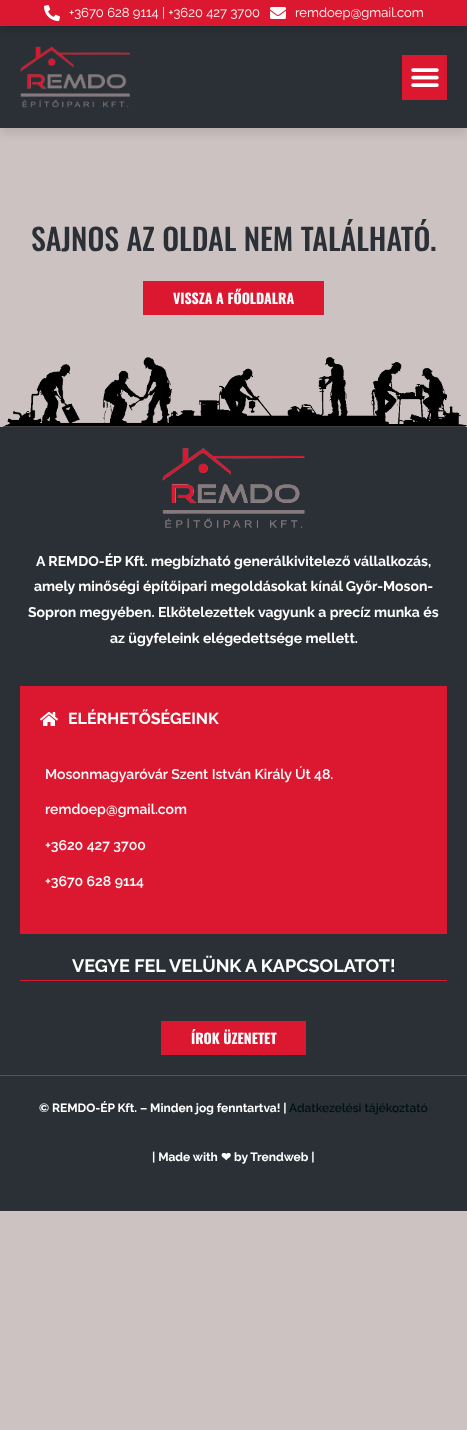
<svg xmlns="http://www.w3.org/2000/svg" width="467" height="1430">
<style>
.a{font:13px Raleway;fill:#fff}
.b{font:500 30px Oswald;fill:#2a3036}
.c{font:bold 14px Oswald;fill:#fff}
.d{font:bold 14px Raleway;fill:#fff}
.e{font:bold 16px Raleway;fill:#fff}
.f{font:600 14px Raleway;fill:#fff}
.g{font:bold 18px Raleway;fill:#fff}
.h{font:bold 12px Raleway;fill:#fff}
.i{font:600 12px Raleway;fill:#011111}
.j{font:bold 12px DejaVu Sans;fill:#fff}
</style>
<rect width="100%" height="100%" fill="#cdc2c2"/>
<path fill="#0000001a" filter="blur(5px)" d="M0 31h467v102H0z"/>
<path fill="#2a3036" d="M0 26h467v102H0z"/>
<image href="3.png" x="20" y="46" width="110" height="62"/>
<path fill="#0000001a" filter="blur(5px)" d="M0 5h467v26H0z"/>
<path fill="#dc1830" d="M0 0h467v26H0z"/>
<image href="1.png" x="44" y="5" width="16" height="16"/>
<image href="2.png" x="270" y="7" width="16" height="12"/>
<path fill="#dc1830" d="M402 55h45v45H402z"/>
<image href="4.png" x="411" y="68" width="28" height="19"/>
<path fill="#dc1830" d="M143 281h181v34H143z"/>
<image href="5.png" x="2" y="357" width="465" height="70"/>
<path fill="#2a3036" d="M0 427h467v648H0z"/>
<path fill="#dc1830" d="M0 1075h467v1H0z"/>
<image href="6.png" x="162" y="448" width="143" height="80"/>
<path fill="#dc1830" d="M20 686h427v248H20z"/>
<image href="7.png" x="40" y="712" width="18" height="14"/>
<path fill="#dc1830" d="M20 980h427v1H20z"/>
<path fill="#dc1830" d="M161 1021h145v34H161z"/>
<path fill="#2a3036" d="M0 1076h467v135H0z"/>
<text class="a" x="69" y="17">+3670 628 9114 | +3620 427 3700</text>
<text class="a" x="295" y="17">remdoep@gmail.com</text>
<text class="b" x="31" y="251">SAJNOS AZ OLDAL NEM TALÁLHATÓ.</text>
<text class="c" x="173" y="304">VISSZA A FŐOLDALRA</text>
<text class="d" x="36" y="566">A REMDO-ÉP Kft. megbízható generálkivitelező vállalkozás,</text>
<text class="d" x="34" y="591">amely minőségi építőipari megoldásokat kínál Győr-Moson-</text>
<text class="d" x="28" y="617">Sopron megyében. Elkötelezettek vagyunk a precíz munka és</text>
<text class="d" x="110" y="643">az ügyfeleink elégedettsége mellett.</text>
<text class="e" x="68" y="724">ELÉRHETŐSÉGEINK</text>
<text class="f" x="45" y="779">Mosonmagyaróvár Szent István Király Út 48.</text>
<text class="f" x="45" y="814">remdoep@gmail.com</text>
<text class="f" x="45" y="850">+3620 427 3700</text>
<text class="f" x="45" y="886">+3670 628 9114</text>
<text class="g" x="72" y="972">VEGYE FEL VELÜNK A KAPCSOLATOT!</text>
<text class="c" x="191" y="1044">ÍROK ÜZENETET</text>
<text class="h" x="39" y="1112">© REMDO-ÉP Kft. – Minden jog fenntartva! |</text>
<text class="i" x="289" y="1112">Adatkezelési tájékoztató</text>
<text class="h" x="152" y="1161">| Made with</text>
<text class="j" x="221" y="1161">❤</text>
<text class="h" x="234" y="1161">by Trendweb |</text>
</svg>
